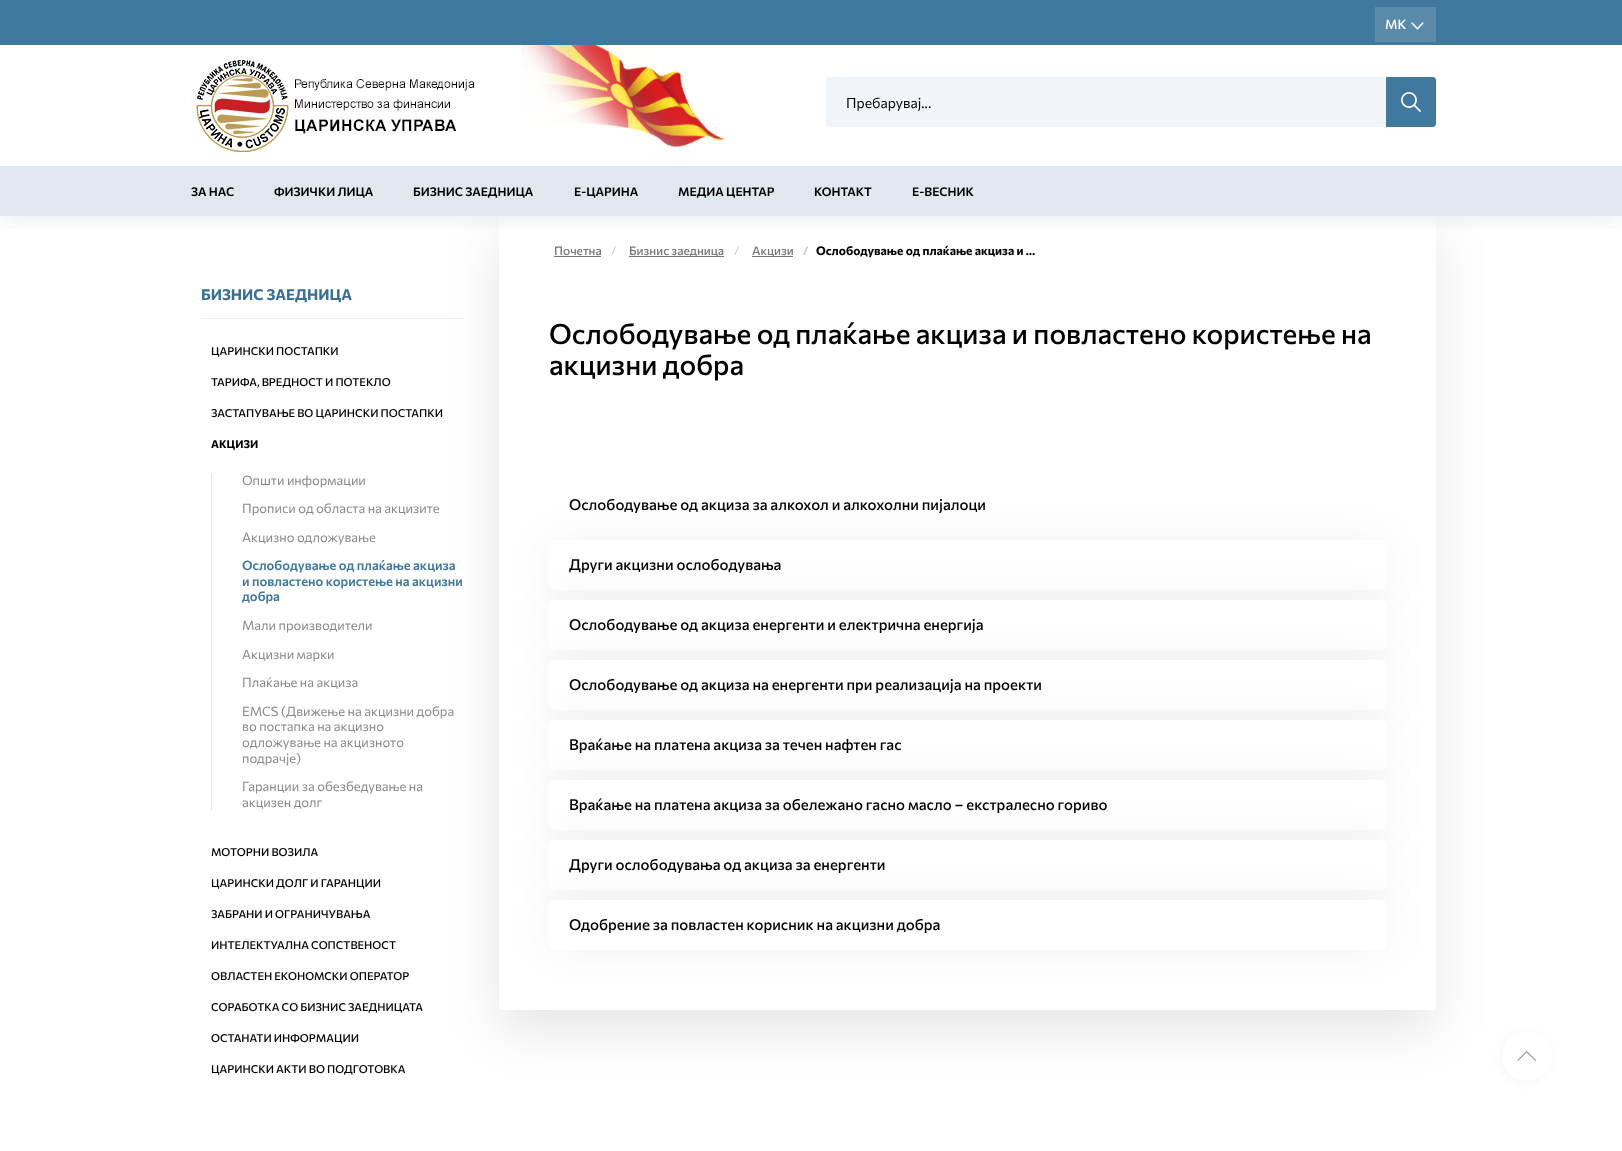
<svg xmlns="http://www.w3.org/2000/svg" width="1622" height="1151">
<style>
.a{font:500 13px Commissioner;fill:#fff}
.b{font:14px Commissioner;fill:#000}
.c{font:600 12px Commissioner;fill:#000}
.d{font:bold 15px Commissioner;fill:#367097}
.e{font:500 11px Commissioner;fill:#000}
.f{font:bold 11px Commissioner;fill:#000}
.g{font:13px Commissioner;fill:#888}
.h{font:600 13px Commissioner;fill:#41799e}
.i{font:500 12px Commissioner;fill:#777}
.j{font:12px Commissioner;fill:#ccc}
.k{font:bold 12px Commissioner;fill:#ccc}
.l{font:bold 12px Commissioner;fill:#000}
.m{font:500 28px Commissioner;fill:#000}
.n{font:500 15px Commissioner;fill:#000}
</style>
<defs>
<clipPath id="clip1"><path d="M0 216h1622v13H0z"/></clipPath>
</defs>
<rect width="100%" height="100%" fill="#fff"/>
<path fill="#eee" d="M201 318h263v1H201z"/>
<rect fill="#0000001a" filter="blur(25px)" x="499" y="236" width="937" height="794" rx="3"/>
<path fill="#fff" d="M499 216h937v791c0 1.5-1.5 3-3 3h-931c-1.5 0-3-1.5-3-3z"/>
<path fill="#777" d="M554 256h47v1H554z"/>
<path fill="#777" d="M629 256h95v1H629z"/>
<path fill="#777" d="M752 256h41v1H752z"/>
<g clip-path="url(#clip1)">
<path fill="#1c1d231a" filter="blur(15px)" d="M0 0h1622v216H0z"/>
</g>
<path fill="#41799e" d="M0 0h1622v45H0z"/>
<path fill="#5a8bab" d="M1375 7h61v35H1375z"/>
<image href="1.png" x="1411" y="22" width="13" height="8"/>
<image href="2.png" x="521" y="45" width="204" height="103"/>
<image href="3.png" x="191" y="60" width="284" height="92"/>
<rect fill="#f1f4f9" x="826" y="77" width="560" height="50" rx="3"/>
<path fill="#41799e" d="M1386 77h47c1.5 0 3 1.5 3 3v44c0 1.5-1.5 3-3 3h-47z"/>
<image href="4.png" x="1401" y="92" width="20" height="20"/>
<path fill="#e2e6ef" d="M0 166h1622v50H0z"/>
<path fill="#e2e2e2" d="M211 473h1v337H211z"/>
<rect fill="#0000000d" filter="blur(20px)" x="549" y="540" width="837" height="50" rx="5"/>
<rect fill="#fff" x="549" y="540" width="837" height="50" rx="5"/>
<rect fill="#0000000d" filter="blur(20px)" x="549" y="600" width="837" height="50" rx="5"/>
<rect fill="#fff" x="549" y="600" width="837" height="50" rx="5"/>
<rect fill="#0000000d" filter="blur(20px)" x="549" y="660" width="837" height="50" rx="5"/>
<rect fill="#fff" x="549" y="660" width="837" height="50" rx="5"/>
<rect fill="#0000000d" filter="blur(20px)" x="549" y="720" width="837" height="50" rx="5"/>
<rect fill="#fff" x="549" y="720" width="837" height="50" rx="5"/>
<rect fill="#0000000d" filter="blur(20px)" x="549" y="780" width="837" height="50" rx="5"/>
<rect fill="#fff" x="549" y="780" width="837" height="50" rx="5"/>
<rect fill="#0000000d" filter="blur(20px)" x="549" y="840" width="837" height="50" rx="5"/>
<rect fill="#fff" x="549" y="840" width="837" height="50" rx="5"/>
<rect fill="#0000000d" filter="blur(20px)" x="549" y="900" width="837" height="50" rx="5"/>
<rect fill="#fff" x="549" y="900" width="837" height="50" rx="5"/>
<rect fill="#9999991a" filter="blur(5px)" x="1500" y="1033" width="50" height="50" rx="25"/>
<path fill="#fff" d="M1502 1056c0-33 50-33 50 0c0 33-50 33-50 0z"/>
<image href="5.png" x="1517" y="1051" width="19" height="10"/>
<text class="a" x="1385" y="29">MK</text>
<text class="b" x="846" y="108">Пребарувај...</text>
<text class="c" x="191" y="196">ЗА НАС</text>
<text class="c" x="274" y="196">ФИЗИЧКИ ЛИЦА</text>
<text class="c" x="413" y="196">БИЗНИС ЗАЕДНИЦА</text>
<text class="c" x="574" y="196">Е-ЦАРИНА</text>
<text class="c" x="678" y="196">МЕДИА ЦЕНТАР</text>
<text class="c" x="814" y="196">КОНТАКТ</text>
<text class="c" x="912" y="196">Е-ВЕСНИК</text>
<text class="d" x="201" y="300">БИЗНИС ЗАЕДНИЦА</text>
<text class="e" x="211" y="355">ЦАРИНСКИ ПОСТАПКИ</text>
<text class="e" x="211" y="386">ТАРИФА, ВРЕДНОСТ И ПОТЕКЛО</text>
<text class="e" x="211" y="417">ЗАСТАПУВАЊЕ ВО ЦАРИНСКИ ПОСТАПКИ</text>
<text class="f" x="211" y="448">АКЦИЗИ</text>
<text class="g" x="242" y="485">Општи информации</text>
<text class="g" x="242" y="513">Прописи од областа на акцизите</text>
<text class="g" x="242" y="542">Акцизно одложување</text>
<text class="h" x="242" y="570">Ослободување од плаќање акциза</text>
<text class="h" x="242" y="586">и повластено користење на акцизни</text>
<text class="h" x="242" y="601">добра</text>
<text class="g" x="242" y="630">Мали производители</text>
<text class="g" x="242" y="659">Акцизни марки</text>
<text class="g" x="242" y="687">Плаќање на акциза</text>
<text class="g" x="242" y="716">EMCS (Движење на акцизни добра</text>
<text class="g" x="242" y="731">во постапка на акцизно</text>
<text class="g" x="242" y="747">одложување на акцизното</text>
<text class="g" x="242" y="763">подрачје)</text>
<text class="g" x="242" y="791">Гаранции за обезбедување на</text>
<text class="g" x="242" y="807">акцизен долг</text>
<text class="e" x="211" y="856">МОТОРНИ ВОЗИЛА</text>
<text class="e" x="211" y="887">ЦАРИНСКИ ДОЛГ И ГАРАНЦИИ</text>
<text class="e" x="211" y="918">ЗАБРАНИ И ОГРАНИЧУВАЊА</text>
<text class="e" x="211" y="949">ИНТЕЛЕКТУАЛНА СОПСТВЕНОСТ</text>
<text class="e" x="211" y="980">ОВЛАСТЕН ЕКОНОМСКИ ОПЕРАТОР</text>
<text class="e" x="211" y="1011">СОРАБОТКА СО БИЗНИС ЗАЕДНИЦАТА</text>
<text class="e" x="211" y="1042">ОСТАНАТИ ИНФОРМАЦИИ</text>
<text class="e" x="211" y="1073">ЦАРИНСКИ АКТИ ВО ПОДГОТОВКА</text>
<text class="i" x="554" y="255">Почетна</text>
<text class="j" x="611" y="255">/</text>
<text class="i" x="629" y="255">Бизнис заедница</text>
<text class="j" x="734" y="255">/</text>
<text class="i" x="752" y="255">Акцизи</text>
<text class="k" x="803" y="255">/</text>
<text class="l" x="816" y="255">Ослободување од плаќање акциза и …</text>
<text class="m" x="549" y="344">Ослободување од плаќање акциза и повластено користење на</text>
<text class="m" x="549" y="375">акцизни добра</text>
<text class="n" x="569" y="510">Ослободување од акциза за алкохол и алкохолни пијалоци</text>
<text class="n" x="569" y="570">Други акцизни ослободувања</text>
<text class="n" x="569" y="630">Ослободување од акциза енергенти и електрична енергија</text>
<text class="n" x="569" y="690">Ослободување од акциза на енергенти при реализација на проекти</text>
<text class="n" x="569" y="750">Враќање на платена акциза за течен нафтен гас</text>
<text class="n" x="569" y="810">Враќање на платена акциза за обележано гасно масло – екстралесно гориво</text>
<text class="n" x="569" y="870">Други ослободувања од акциза за енергенти</text>
<text class="n" x="569" y="930">Одобрение за повластен корисник на акцизни добра</text>
</svg>
